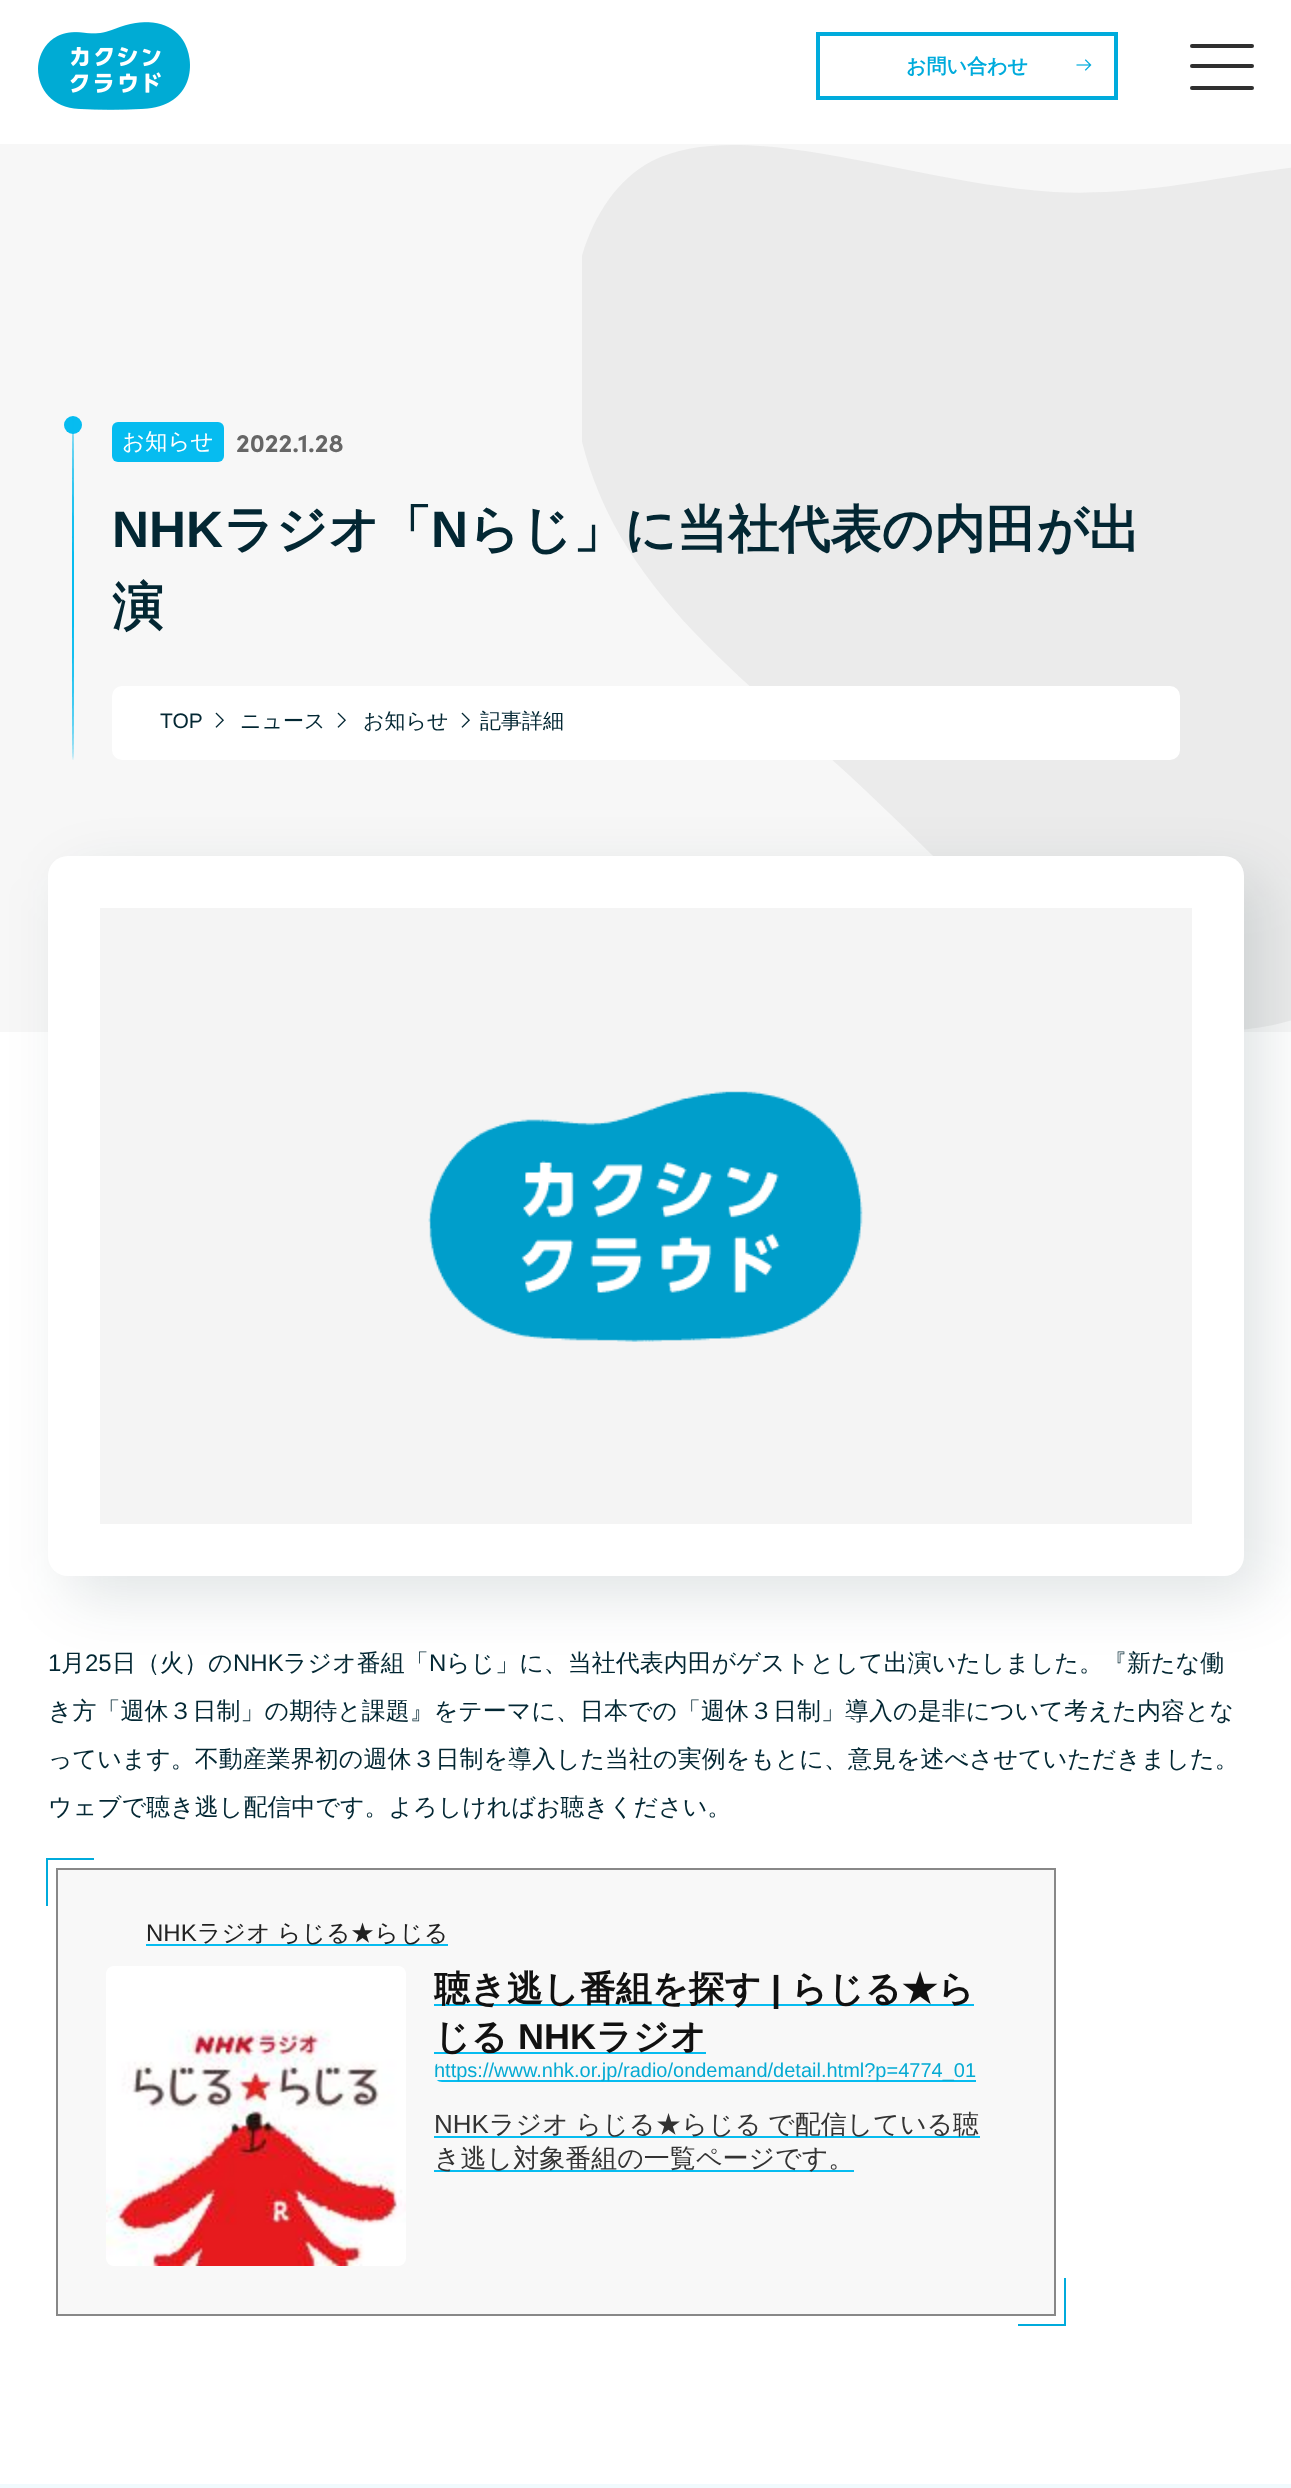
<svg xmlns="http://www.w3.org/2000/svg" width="1291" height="2488">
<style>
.a{font:bold 20px WenQuanYi Zen Hei;fill:#00abdc}
.b{font:500 22.5px WenQuanYi Zen Hei;fill:#fff}
.c{font:bold 25.5px Sofia;fill:#666}
.d{font:bold 51.25px Liberation Sans;fill:#032733}
.e{font:bold 51.25px WenQuanYi Zen Hei;fill:#032733}
.f{font:21px Liberation Sans;fill:#032733}
.g{font:500 21px WenQuanYi Zen Hei;fill:#032733}
.h{font:24px Liberation Sans;fill:#032733}
.i{font:500 24px WenQuanYi Zen Hei;fill:#032733}
.j{font:24px Liberation Sans;fill:#222}
.k{font:500 24px WenQuanYi Zen Hei;fill:#222}
.l{font:bold 36px WenQuanYi Zen Hei;fill:#111}
.m{font:bold 36px Liberation Sans;fill:#111}
.n{font:20px Liberation Sans;fill:#05aad3}
.o{font:26px Liberation Sans;fill:#333}
.p{font:500 26px WenQuanYi Zen Hei;fill:#333}
</style>
<defs>
<clipPath id="clip1"><path d="M582 144h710v888H582z"/></clipPath>
<clipPath id="clip2"><rect x="434" y="2062" width="572" height="20" rx="8"/></clipPath>
</defs>
<rect width="100%" height="100%" fill="#fff"/>
<image href="1.png" x="38" y="22" width="152" height="88"/>
<path fill="none" stroke="#00abdc" stroke-width="4" d="M818 34h298v64H818z"/>
<image href="2.png" x="1076" y="59" width="16" height="12"/>
<rect fill="#2f2f2f" x="1190" y="44" width="64" height="4" rx="2"/>
<rect fill="#2f2f2f" x="1190" y="64" width="64" height="4" rx="2"/>
<rect fill="#2f2f2f" x="1190" y="86" width="64" height="4" rx="2"/>
<path fill="#f7f7f7" d="M0 144h1291v888H0z"/>
<g clip-path="url(#clip1)">
<path fill="#ebebeb" d="M866 791c107 100 208 222 328 238c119 16 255-75 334-194c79-119 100-268 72-396c-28-129-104-239-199-267c-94-27-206 27-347 20c-141-8-311-78-402-31c-91 48-103 212-53 332c50 121 161 198 267 298z"/>
</g>
<circle fill="#06bcf0" cx="73" cy="425" r="9"/>
<ellipse fill="#06bcf0" cx="73" cy="588" rx="1" ry="172"/>
<rect fill="#06bcf0" x="112" y="422" width="112" height="40" rx="6"/>
<rect fill="#fff" x="112" y="686" width="1068" height="74" rx="10"/>
<image href="3.png" x="215" y="712" width="9" height="16"/>
<image href="3.png" x="337" y="712" width="9" height="16"/>
<image href="3.png" x="461" y="712" width="9" height="16"/>
<rect fill="#021f271f" filter="blur(30px)" x="68" y="876" width="1196" height="720" rx="20"/>
<rect fill="#fff" x="48" y="856" width="1196" height="720" rx="20"/>
<image href="4.png" x="100" y="908" width="1092" height="616"/>
<path fill="#f8f8f8" stroke="#888" stroke-width="2" d="M57 1869h998v446H57z"/>
<path fill="#00abdc" d="M46 1858h48v2H46z"/>
<path fill="#00abdc" d="M46 1858h2v48H46z"/>
<path fill="#06bcf0" d="M146 1944h302v2H146z"/>
<image href="5.png" x="106" y="1966" width="300" height="300"/>
<path fill="#06bcf0" d="M434 2004h540v2H434z"/>
<path fill="#06bcf0" d="M434 2052h272v2H434z"/>
<g clip-path="url(#clip2)">
<path fill="#06bcf0" d="M434 2080h542v2H434z"/>
</g>
<path fill="#06bcf0" d="M434 2136h546v2H434z"/>
<path fill="#06bcf0" d="M434 2170h420v2H434z"/>
<path fill="#00abdc" d="M1064 2278h2v48H1064z"/>
<path fill="#00abdc" d="M1018 2324h48v2H1018z"/>
<path fill="#f0fafd" d="M0 2484h1291v4H0z"/>
<text class="a" x="906" y="73">お問い合わせ</text>
<text class="b" x="122" y="449">お知らせ</text>
<text class="c" x="236" y="452">2022.1.28</text>
<text class="d" x="112" y="547">NHK</text>
<text class="e" x="223" y="547">ラジオ「</text>
<text class="d" x="431" y="547">N</text>
<text class="e" x="468" y="547">らじ」に当社代表の内田が出</text>
<text class="e" x="112" y="624">演</text>
<text class="f" x="160" y="728">TOP</text>
<text class="g" x="240" y="728">ニュース</text>
<text class="g" x="363" y="728">お知らせ</text>
<text class="g" x="480" y="728">記事詳細</text>
<text class="h" x="48" y="1671">1</text>
<text class="i" x="61" y="1671">月</text>
<text class="h" x="85" y="1671">25</text>
<text class="i" x="112" y="1671">日（火）の</text>
<text class="h" x="233" y="1671">NHK</text>
<text class="i" x="283" y="1671">ラジオ番組「</text>
<text class="h" x="429" y="1671">N</text>
<text class="i" x="446" y="1671">らじ」に、当社代表内田がゲストとして出演いたしました。『新たな働</text>
<text class="i" x="48" y="1719">き方「週休３日制」の期待と課題』をテーマに、日本での「週休３日制」導入の是非について考えた内容とな</text>
<text class="i" x="48" y="1767">っています。不動産業界初の週休３日制を導入した当社の実例をもとに、意見を述べさせていただきました。</text>
<text class="i" x="48" y="1815">ウェブで聴き逃し配信中です。よろしければお聴きください。</text>
<text class="j" x="146" y="1941">NHK</text>
<text class="k" x="197" y="1941" word-spacing="-1">ラジオ らじる★らじる</text>
<text class="l" x="434" y="2001">聴き逃し番組を探す</text>
<text class="m" x="771" y="2001">|</text>
<text class="l" x="791" y="2001">らじる★ら</text>
<text class="l" x="434" y="2049">じる</text>
<text class="m" x="518" y="2049">NHK</text>
<text class="l" x="596" y="2049">ラジオ</text>
<g clip-path="url(#clip2)">
<text class="n" x="434" y="2077">https://www.nhk.or.jp/radio/ondemand/detail.html?p=4774_01</text>
</g>
<text class="o" x="434" y="2133">NHK</text>
<text class="p" x="489" y="2133" word-spacing="-1">ラジオ らじる★らじる で配信している聴</text>
<text class="p" x="434" y="2167">き逃し対象番組の一覧ページです。</text>
</svg>
